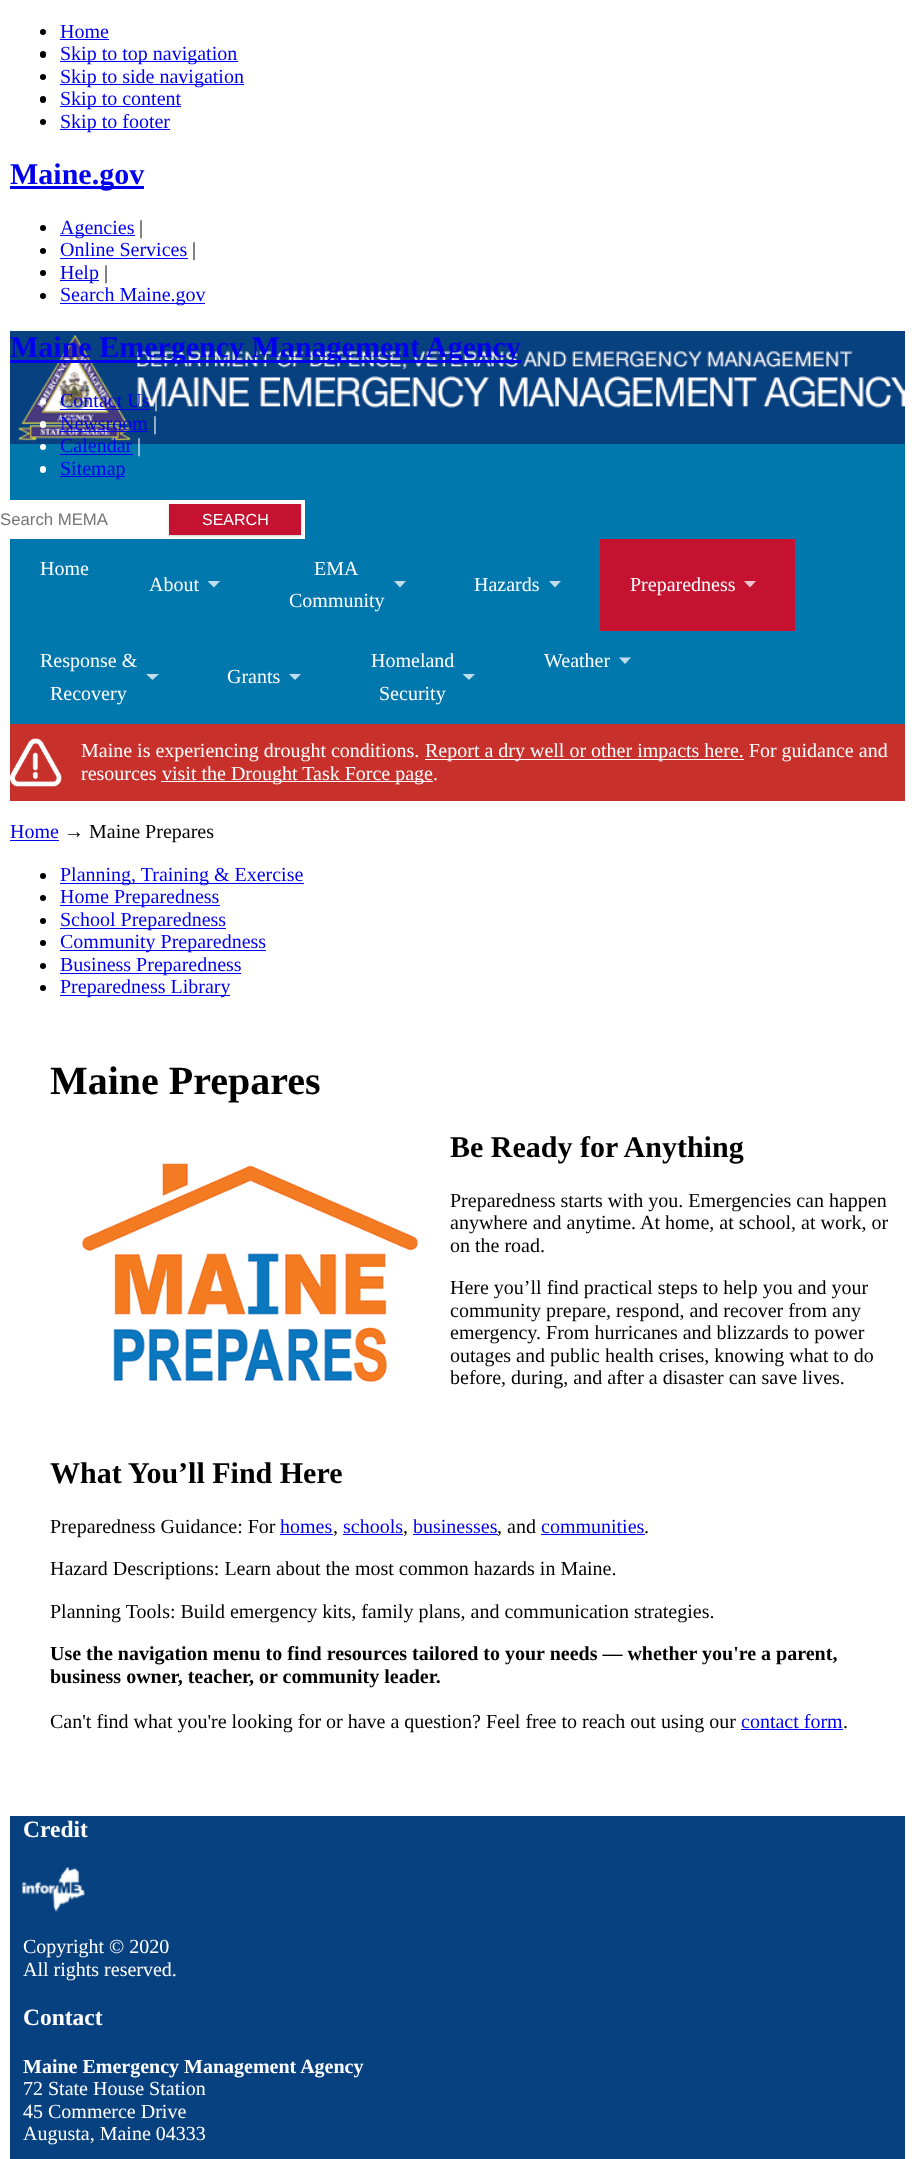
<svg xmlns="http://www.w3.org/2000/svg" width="915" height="2159">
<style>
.a{font:20px Liberation Serif;fill:#00e}
.b{font:bold 30px Liberation Serif;fill:#00e}
.c{font:20px Liberation Serif;fill:#000}
.d{font:20px Liberation Serif;fill:#fff}
.e{font:16.75px Liberation Sans;fill:#757575}
.f{font:16px Liberation Sans;fill:#fff}
.g{font:bold 40px Liberation Serif;fill:#000}
.h{font:bold 30px Liberation Serif;fill:#000}
.i{font:bold 20px Liberation Serif;fill:#000}
.j{font:bold 23.5px Liberation Serif;fill:#fff}
.k{font:bold 20px Liberation Serif;fill:#fff}
</style>
<rect width="100%" height="100%" fill="#fff"/>
<circle fill="#000" cx="43" cy="32" r="3"/>
<path fill="#00e" d="M60 39h49v1H60z"/>
<rect fill="#000" x="40" y="51" width="6" height="7" rx="3"/>
<path fill="#00e" d="M60 61h178v1H60z"/>
<circle fill="#000" cx="43" cy="77" r="3"/>
<path fill="#00e" d="M60 84h184v1H60z"/>
<rect fill="#000" x="40" y="96" width="6" height="7" rx="3"/>
<path fill="#00e" d="M60 106h121v1H60z"/>
<circle fill="#000" cx="43" cy="122" r="3"/>
<path fill="#00e" d="M60 129h110v1H60z"/>
<path fill="#00e" d="M10 186h134v3H10z"/>
<circle fill="#000" cx="43" cy="228" r="3"/>
<path fill="#00e" d="M60 235h75v1H60z"/>
<circle fill="#000" cx="43" cy="251" r="3"/>
<path fill="#00e" d="M60 258h128v1H60z"/>
<circle fill="#000" cx="43" cy="273" r="3"/>
<path fill="#00e" d="M60 280h39v1H60z"/>
<circle fill="#000" cx="43" cy="296" r="3"/>
<path fill="#00e" d="M60 303h145v1H60z"/>
<path fill="#074180" d="M10 331h895v113H10z"/>
<image href="1.png" x="18" y="335" width="887" height="106"/>
<path fill="#00e" d="M10 360h511v3H10z"/>
<circle fill="#fff" cx="43" cy="402" r="3"/>
<path fill="#00e" d="M60 409h90v1H60z"/>
<rect fill="#fff" x="40" y="421" width="6" height="7" rx="3"/>
<path fill="#00e" d="M60 431h88v1H60z"/>
<path fill="#0078ae" d="M10 444h895v280H10z"/>
<circle fill="#fff" cx="43" cy="447" r="3"/>
<path fill="#00e" d="M60 454h73v1H60z"/>
<rect fill="#fff" x="40" y="466" width="6" height="7" rx="3"/>
<path fill="#00e" d="M60 476h65v1H60z"/>
<path fill="#fff" d="M10 500h295v39H10z"/>
<path fill="#00000033" filter="blur(1px)" d="M169 505h132v31H169z"/>
<path fill="#c41230" d="M169 504h132v31H169z"/>
<path fill="#bfddeb" d="M207.5 581h12.5l-6 6.5z"/>
<path fill="#bfddeb" d="M394 581h12l-6 6.5z"/>
<path fill="#bfddeb" d="M549 581h12l-6 6.5z"/>
<path fill="#c41230" d="M600 539h195v92H600z"/>
<path fill="#f0c4cb" d="M744 581h12l-6 6.5z"/>
<path fill="#bfddeb" d="M146 674h13l-6.5 6z"/>
<path fill="#bfddeb" d="M462.5 674h12.5l-6 6z"/>
<path fill="#bfddeb" d="M619 657.5h12l-6 6.5z"/>
<path fill="#bfddeb" d="M289 674h12l-6 6z"/>
<path fill="#c8302c" d="M10 724h895v77H10z"/>
<image href="2.png" x="10" y="738" width="52" height="49"/>
<path fill="#fff" d="M425 759h319v1H425z"/>
<path fill="#fff" d="M161 781h272v1H161z"/>
<path fill="#00e" d="M10 840h49v1H10z"/>
<circle fill="#000" cx="43" cy="876" r="3"/>
<path fill="#00e" d="M60 883h244v1H60z"/>
<circle fill="#000" cx="43" cy="898" r="3"/>
<path fill="#00e" d="M60 905h160v1H60z"/>
<circle fill="#000" cx="43" cy="921" r="3"/>
<path fill="#00e" d="M60 928h166v1H60z"/>
<circle fill="#000" cx="43" cy="943" r="3"/>
<path fill="#00e" d="M60 950h206v1H60z"/>
<circle fill="#000" cx="43" cy="966" r="3"/>
<path fill="#00e" d="M60 973h181v1H60z"/>
<circle fill="#000" cx="43" cy="988" r="3"/>
<path fill="#00e" d="M60 995h170v1H60z"/>
<image href="3.png" x="82" y="1163" width="336" height="219"/>
<path fill="#00e" d="M280 1534h53v1H280z"/>
<path fill="#00e" d="M343 1534h60v1H343z"/>
<path fill="#00e" d="M413 1534h85v1H413z"/>
<path fill="#00e" d="M541 1534h104v1H541z"/>
<path fill="#00e" d="M741 1729h102v1H741z"/>
<path fill="#074180" d="M10 1816h895v343H10z"/>
<image href="4.png" x="22" y="1867" width="63" height="45"/>
<text class="a" x="60" y="38">Home</text>
<text class="a" x="60" y="60">Skip to top navigation</text>
<text class="a" x="60" y="83">Skip to side navigation</text>
<text class="a" x="60" y="105">Skip to content</text>
<text class="a" x="60" y="128">Skip to footer</text>
<text class="b" x="10" y="184">Maine.gov</text>
<text class="a" x="60" y="234">Agencies</text>
<text class="c" x="139" y="234">|</text>
<text class="a" x="60" y="256">Online Services</text>
<text class="c" x="192" y="256">|</text>
<text class="a" x="60" y="279">Help</text>
<text class="c" x="104" y="279">|</text>
<text class="a" x="60" y="301">Search Maine.gov</text>
<text class="b" x="10" y="357">Maine Emergency Management Agency</text>
<text class="a" x="60" y="407">Contact Us</text>
<text class="d" x="154" y="407">|</text>
<text class="a" x="60" y="430">Newsroom</text>
<text class="d" x="153" y="430">|</text>
<text class="a" x="60" y="452">Calendar</text>
<text class="d" x="137" y="452">|</text>
<text class="a" x="60" y="475">Sitemap</text>
<text class="e" x="0" y="525">Search MEMA</text>
<text class="f" x="202" y="525">SEARCH</text>
<text class="d" x="40" y="575">Home</text>
<text class="d" x="149" y="591">About</text>
<text class="d" x="314" y="575">EMA</text>
<text class="d" x="289" y="607">Community</text>
<text class="d" x="474" y="591">Hazards</text>
<text class="d" x="630" y="591">Preparedness</text>
<text class="d" x="40" y="667">Response &amp;</text>
<text class="d" x="50" y="700">Recovery</text>
<text class="d" x="371" y="667">Homeland</text>
<text class="d" x="379" y="700">Security</text>
<text class="d" x="544" y="667">Weather</text>
<text class="d" x="227" y="683">Grants</text>
<text class="d" x="81" y="757">Maine is experiencing drought conditions.</text>
<text class="d" x="425" y="757">Report a dry well or other impacts here. For guidance and</text>
<text class="d" x="81" y="780">resources</text>
<text class="d" x="162" y="780">visit the Drought Task Force page.</text>
<text class="a" x="10" y="838">Home</text>
<text class="c" x="64" y="838">→ Maine Prepares</text>
<text class="a" x="60" y="881">Planning, Training &amp; Exercise</text>
<text class="a" x="60" y="903">Home Preparedness</text>
<text class="a" x="60" y="926">School Preparedness</text>
<text class="a" x="60" y="948">Community Preparedness</text>
<text class="a" x="60" y="971">Business Preparedness</text>
<text class="a" x="60" y="993">Preparedness Library</text>
<text class="g" x="50" y="1094">Maine Prepares</text>
<text class="h" x="450" y="1157">Be Ready for Anything</text>
<text class="c" x="450" y="1207">Preparedness starts with you. Emergencies can happen</text>
<text class="c" x="450" y="1229">anywhere and anytime. At home, at school, at work, or</text>
<text class="c" x="450" y="1252">on the road.</text>
<text class="c" x="450" y="1294">Here you’ll find practical steps to help you and your</text>
<text class="c" x="450" y="1317">community prepare, respond, and recover from any</text>
<text class="c" x="450" y="1339">emergency. From hurricanes and blizzards to power</text>
<text class="c" x="450" y="1362">outages and public health crises, knowing what to do</text>
<text class="c" x="450" y="1384">before, during, and after a disaster can save lives.</text>
<text class="h" x="50" y="1483">What You’ll Find Here</text>
<text class="c" x="50" y="1533">Preparedness Guidance: For</text>
<text class="a" x="280" y="1533">homes</text>
<text class="c" x="333" y="1533">,</text>
<text class="a" x="343" y="1533">schools</text>
<text class="c" x="403" y="1533">,</text>
<text class="a" x="413" y="1533">businesses</text>
<text class="c" x="497" y="1533">, and</text>
<text class="a" x="541" y="1533">communities</text>
<text class="c" x="644" y="1533">.</text>
<text class="c" x="50" y="1575">Hazard Descriptions: Learn about the most common hazards in Maine.</text>
<text class="c" x="50" y="1618">Planning Tools: Build emergency kits, family plans, and communication strategies.</text>
<text class="i" x="50" y="1660">Use the navigation menu to find resources tailored to your needs — whether you're a parent,</text>
<text class="i" x="50" y="1683">business owner, teacher, or community leader.</text>
<text class="c" x="50" y="1728">Can't find what you're looking for or have a question? Feel free to reach out using our</text>
<text class="a" x="741" y="1728">contact form</text>
<text class="c" x="843" y="1728">.</text>
<text class="j" x="23" y="1837">Credit</text>
<text class="d" x="23" y="1953">Copyright © 2020</text>
<text class="d" x="23" y="1976">All rights reserved.</text>
<text class="j" x="23" y="2025">Contact</text>
<text class="k" x="23" y="2073">Maine Emergency Management Agency</text>
<text class="d" x="23" y="2095">72 State House Station</text>
<text class="d" x="23" y="2118">45 Commerce Drive</text>
<text class="d" x="23" y="2140">Augusta, Maine 04333</text>
</svg>
